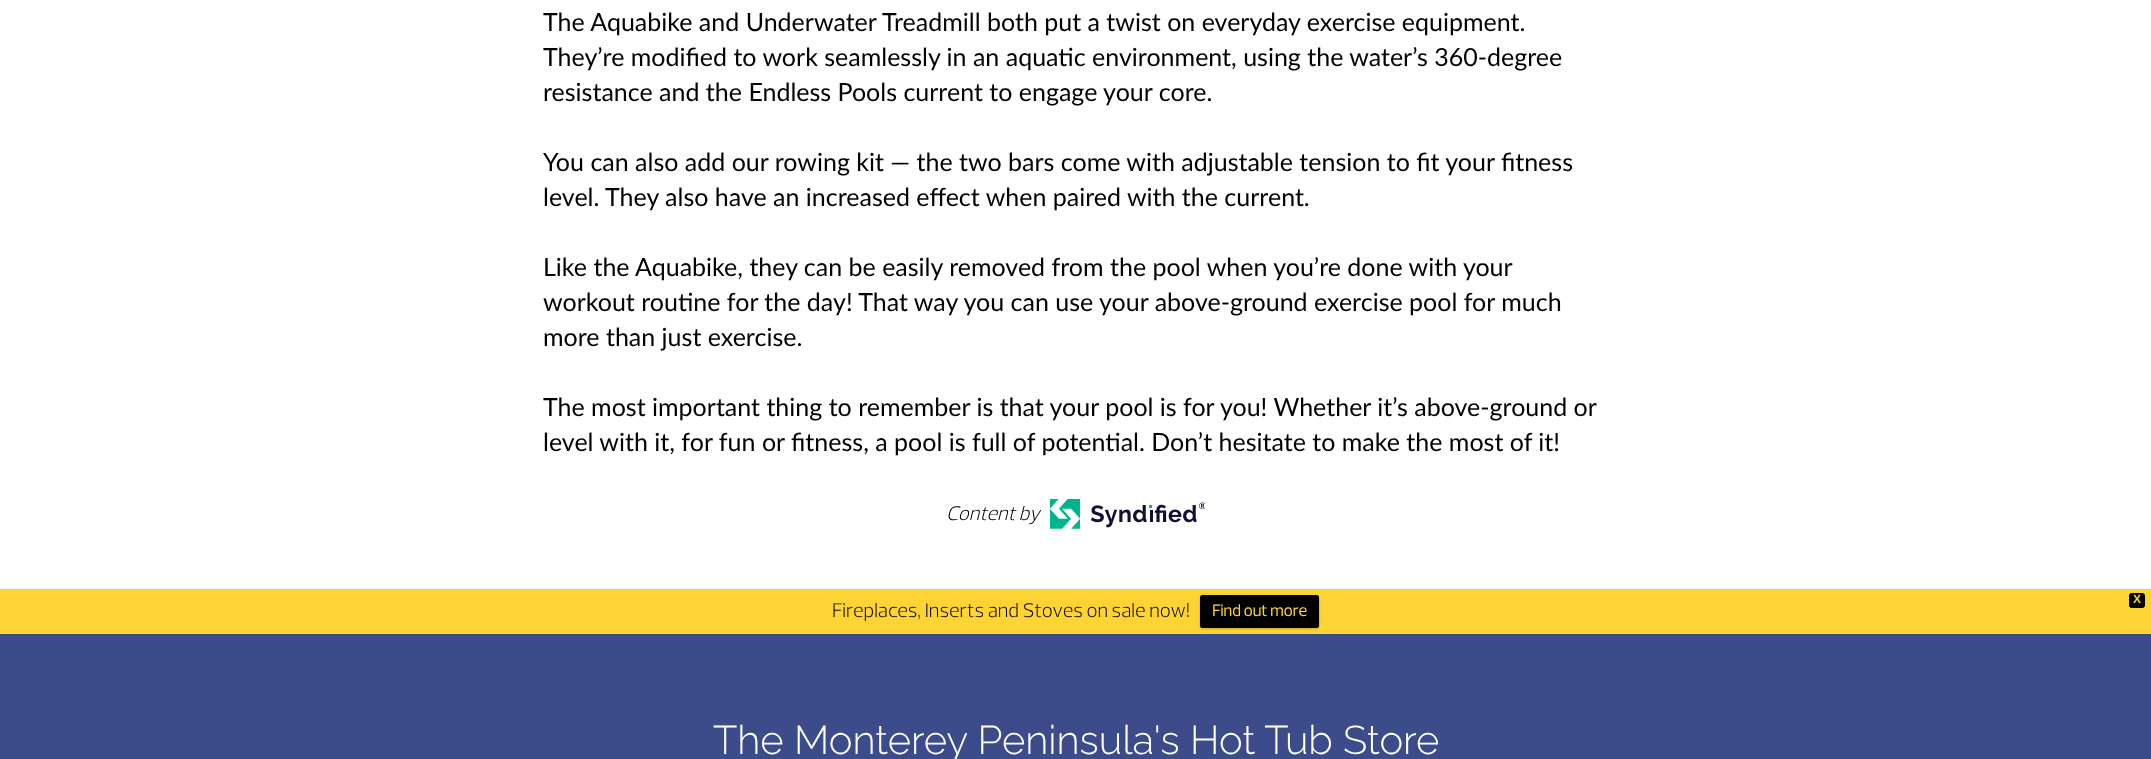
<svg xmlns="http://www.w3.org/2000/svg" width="2151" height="759">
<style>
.a{font:25px Lato;fill:#000}
.b{font:italic 300 20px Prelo;fill:#000}
.c{font:bold 12px Liberation Sans;fill:#fed334}
.d{font:300 20px Prelo;fill:#000}
.e{font:bold 16.25px Prelo;fill:#fed334}
.f{font:300 40px Raleway;fill:#fff}
</style>
<rect width="100%" height="100%" fill="#fff"/>
<image href="1.png" x="1050" y="499" width="155" height="30"/>
<path fill="#fed334" d="M0 589h2151v45H0z"/>
<rect fill="#000" stroke="#000" x="2129.5" y="593.5" width="15" height="14" rx="2"/>
<rect fill="#00000033" filter="blur(1px)" x="1200" y="596" width="119" height="33" rx="2.5"/>
<rect fill="#000" x="1200" y="595" width="119" height="33" rx="2.5"/>
<path fill="#3c4b89" d="M0 634h2151v125H0z"/>
<text class="a" x="543" y="31">The Aquabike and Underwater Treadmill both put a twist on everyday exercise equipment.</text>
<text class="a" x="543" y="66">They’re modified to work seamlessly in an aquatic environment, using the water’s 360-degree</text>
<text class="a" x="543" y="101">resistance and the Endless Pools current to engage your core.</text>
<text class="a" x="543" y="171">You can also add our rowing kit — the two bars come with adjustable tension to fit your fitness</text>
<text class="a" x="543" y="206">level. They also have an increased effect when paired with the current.</text>
<text class="a" x="543" y="276">Like the Aquabike, they can be easily removed from the pool when you’re done with your</text>
<text class="a" x="543" y="311">workout routine for the day! That way you can use your above-ground exercise pool for much</text>
<text class="a" x="543" y="346">more than just exercise.</text>
<text class="a" x="543" y="416">The most important thing to remember is that your pool is for you! Whether it’s above-ground or</text>
<text class="a" x="543" y="451">level with it, for fun or fitness, a pool is full of potential. Don’t hesitate to make the most of it!</text>
<text class="b" x="946" y="520">Content by</text>
<text class="c" x="2133" y="603">X</text>
<text class="d" x="832" y="617">Fireplaces, Inserts and Stoves on sale now!</text>
<text class="e" x="1212" y="616">Find out more</text>
<text class="f" x="713" y="754">The Monterey Peninsula's Hot Tub Store</text>
</svg>
